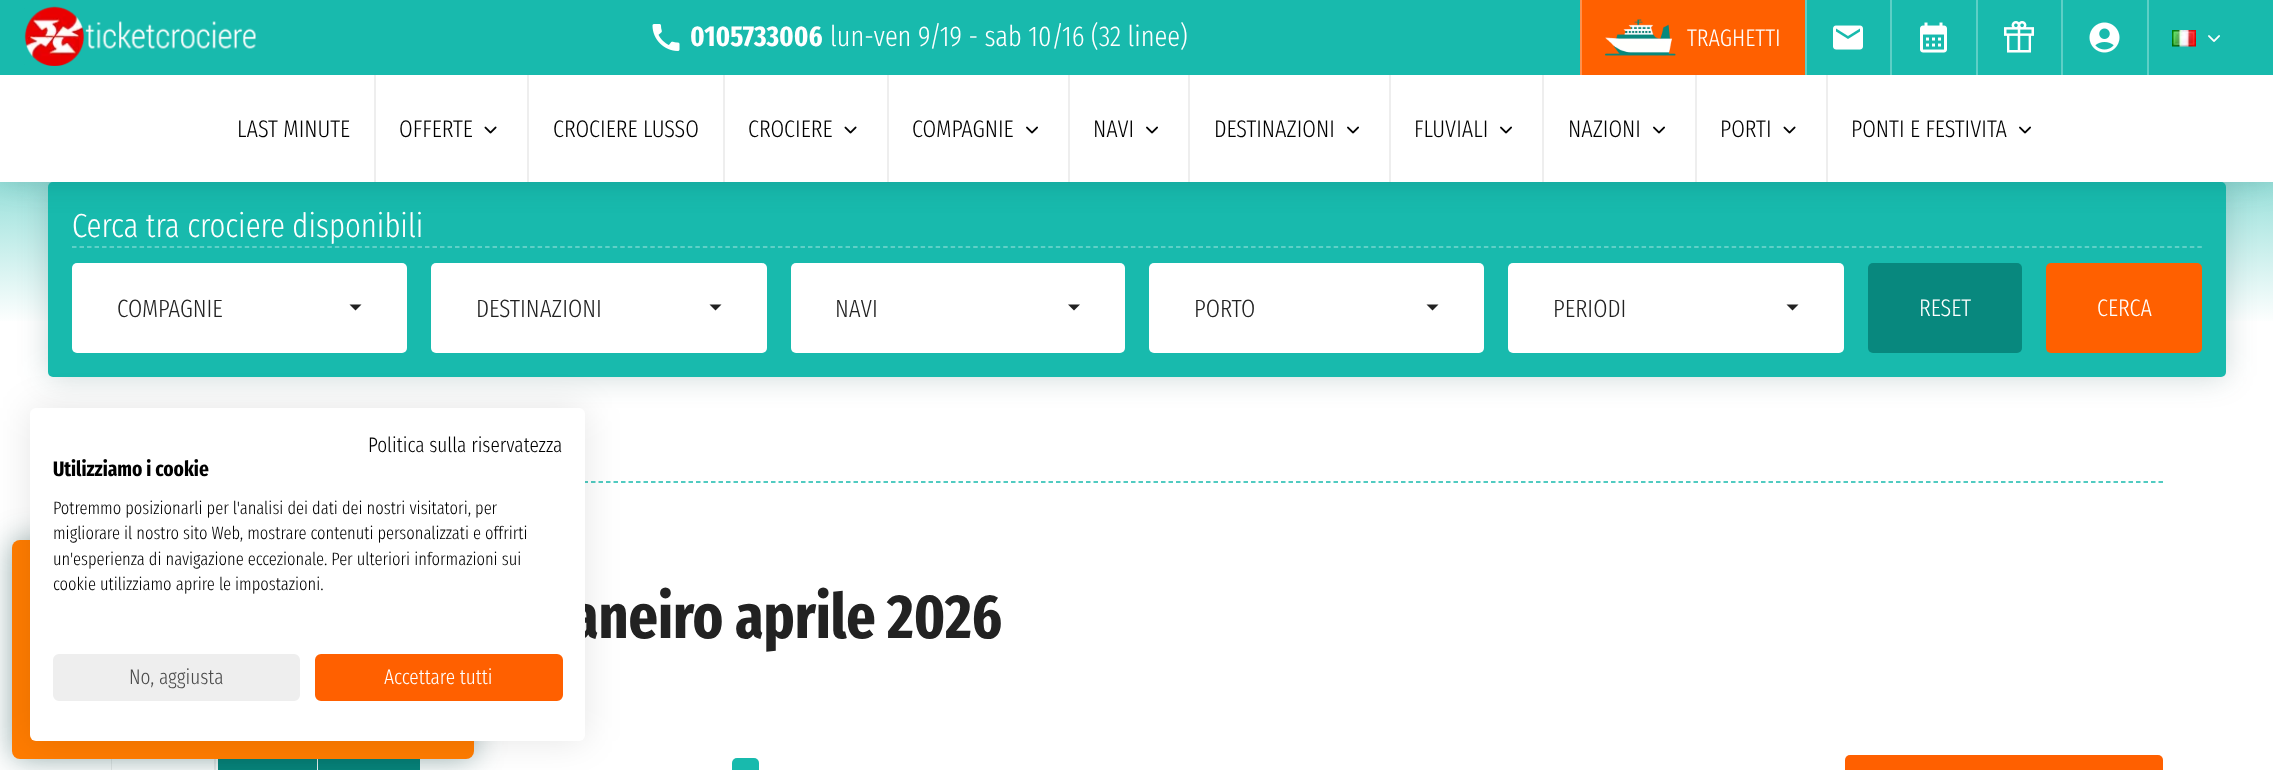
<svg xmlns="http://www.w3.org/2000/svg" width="2273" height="770">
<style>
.a{font:bold 28.75px Fira Sans Extra Condensed;fill:#fff}
.b{font:300 28.75px Fira Sans Extra Condensed;fill:#fff}
.c{font:300 24px Fira Sans Extra Condensed;fill:#fff}
.d{font:300 24px Fira Sans Extra Condensed;fill:#000}
.e{font:300 33.6px Fira Sans Extra Condensed;fill:#fff}
.f{font:300 25px Fira Sans Extra Condensed;fill:#222}
.g{font:bold 62.5px Fira Sans Extra Condensed;fill:#222}
.h{font:300 21px Fira Sans Extra Condensed;fill:#000}
.i{font:bold 21px Fira Sans Extra Condensed;fill:#000}
.j{font:300 18px Fira Sans Extra Condensed;fill:#000}
.k{font:300 21px Fira Sans Extra Condensed;fill:#4a4a4a}
.l{font:300 21px Fira Sans Extra Condensed;fill:#fff}
</style>
<defs>
<linearGradient id="g1" gradientUnits="userSpaceOnUse" x1="1137" y1="0" x2="1137" y2="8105"><stop offset="0" stop-color="#18baad"/><stop offset="0.04" stop-color="#fff"/></linearGradient>
</defs>
<rect width="100%" height="100%" fill="#fff"/>
<path fill="url(#g1)" d="M0 182h2273v139H0z"/>
<rect fill="#003c3c33" filter="blur(15px)" x="48" y="182" width="2178" height="195" rx="5"/>
<rect fill="#18baad" x="48" y="182" width="2178" height="195" rx="5"/>
<path fill="#003c3c33" filter="blur(15px)" d="M0 75h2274v107H0z"/>
<path fill="#18baad" d="M0 0h2273v75H0z"/>
<image href="1.png" x="24" y="6" width="232" height="60"/>
<image href="2.png" x="652" y="24" width="28" height="27"/>
<path fill="#ff6000" d="M1582 0h223v75H1582z"/>
<path fill="#ff904d" d="M1580 0h2v75H1580z"/>
<image href="3.png" x="1605" y="19" width="71" height="37"/>
<path fill="#5dcfc6" d="M1805 0h2v75H1805z"/>
<image href="4.png" x="1833" y="25" width="30" height="25"/>
<path fill="#5dcfc6" d="M1890 0h2v75H1890z"/>
<image href="5.png" x="1920" y="22" width="27" height="31"/>
<path fill="#5dcfc6" d="M1976 0h2v75H1976z"/>
<image href="6.png" x="2004" y="21" width="30" height="32"/>
<path fill="#5dcfc6" d="M2061 0h2v75H2061z"/>
<image href="7.png" x="2089" y="22" width="31" height="31"/>
<path fill="#5dcfc6" d="M2147 0h2v75H2147z"/>
<image href="8.png" x="2172" y="30" width="24" height="17"/>
<image href="9.png" x="2208" y="35" width="12" height="7"/>
<path fill="#fff" d="M0 75h2273v107H0z"/>
<path fill="#eee" d="M374 75h2v107H374z"/>
<path fill="#eee" d="M527 75h2v107H527z"/>
<image href="10.png" x="484" y="126" width="13" height="8"/>
<path fill="#eee" d="M723 75h2v107H723z"/>
<path fill="#eee" d="M887 75h2v107H887z"/>
<image href="10.png" x="844" y="126" width="13" height="8"/>
<path fill="#eee" d="M1068 75h2v107H1068z"/>
<image href="11.png" x="1026" y="126" width="12" height="8"/>
<path fill="#eee" d="M1188 75h2v107H1188z"/>
<image href="11.png" x="1146" y="126" width="12" height="8"/>
<path fill="#eee" d="M1389 75h2v107H1389z"/>
<image href="11.png" x="1347" y="126" width="12" height="8"/>
<path fill="#eee" d="M1542 75h2v107H1542z"/>
<image href="11.png" x="1500" y="126" width="12" height="8"/>
<path fill="#eee" d="M1695 75h2v107H1695z"/>
<image href="11.png" x="1653" y="126" width="12" height="8"/>
<path fill="#eee" d="M1826 75h2v107H1826z"/>
<image href="10.png" x="1783" y="126" width="13" height="8"/>
<image href="11.png" x="2019" y="126" width="12" height="8"/>
<path fill="none" stroke="#76d7cf" stroke-width="1.5" stroke-dasharray="4.5 3.01" d="M72 247h2130"/>
<rect fill="#fff" x="72" y="263" width="335" height="90" rx="5"/>
<path fill="#222" d="M349.5 304.5h12l-6 6z"/>
<rect fill="#fff" x="431" y="263" width="336" height="90" rx="5"/>
<path fill="#222" d="M709.5 304.5h12l-6 6z"/>
<rect fill="#fff" x="791" y="263" width="334" height="90" rx="5"/>
<path fill="#222" d="M1068 304.5h12l-6 6z"/>
<rect fill="#fff" x="1149" y="263" width="335" height="90" rx="5"/>
<path fill="#222" d="M1426.5 304.5h12l-6 6z"/>
<rect fill="#fff" x="1508" y="263" width="336" height="90" rx="5"/>
<path fill="#222" d="M1786.5 304.5h12l-6 6z"/>
<rect fill="#08887e" x="1868" y="263" width="154" height="90" rx="5"/>
<rect fill="#ff6000" x="2046" y="263" width="156" height="90" rx="5"/>
<path fill="none" stroke="#18baad" stroke-width="1.5" stroke-dasharray="4.5 3" d="M111 482h2052"/>
<path fill="#eee" fill-rule="evenodd" d="M118 750h91c4 0 7 3 7 7v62h-105v-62c0-4 3-7 7-7zm0 2h91c3 0 5 2 5 5v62h-102v-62c0-3 3-5 6-5z"/>
<path fill="#08887e" d="M218 759h99v11H218z"/>
<path fill="#08887e" d="M318 759h102v11H318z"/>
<rect fill="#18baad" x="732" y="758" width="27" height="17" rx="5"/>
<rect fill="#ff6000" x="1845" y="755" width="318" height="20" rx="5"/>
<rect fill="#003c3c66" filter="blur(15px)" x="12" y="540" width="462" height="219" rx="8"/>
<rect fill="#ff7c00" x="12" y="540" width="462" height="219" rx="8"/>
<rect fill="#0000001a" filter="blur(18px)" x="30" y="408" width="555" height="333" rx="6"/>
<text class="a" x="690" y="46">0105733006</text>
<text class="b" x="830" y="46">lun-ven 9/19 - sab 10/16 (32 linee)</text>
<text class="c" x="1687" y="46">TRAGHETTI</text>
<text class="d" x="237" y="137">LAST MINUTE</text>
<text class="d" x="399" y="137">OFFERTE</text>
<text class="d" x="553" y="137">CROCIERE LUSSO</text>
<text class="d" x="748" y="137">CROCIERE</text>
<text class="d" x="912" y="137">COMPAGNIE</text>
<text class="d" x="1093" y="137">NAVI</text>
<text class="d" x="1214" y="137">DESTINAZIONI</text>
<text class="d" x="1414" y="137">FLUVIALI</text>
<text class="d" x="1568" y="137">NAZIONI</text>
<text class="d" x="1720" y="137">PORTI</text>
<text class="d" x="1851" y="137">PONTI E FESTIVITA</text>
<text class="e" x="72" y="237">Cerca tra crociere disponibili</text>
<text class="f" x="117" y="317">COMPAGNIE</text>
<text class="f" x="476" y="317">DESTINAZIONI</text>
<text class="f" x="835" y="317">NAVI</text>
<text class="f" x="1194" y="317">PORTO</text>
<text class="f" x="1553" y="317">PERIODI</text>
<text class="c" x="1919" y="316">RESET</text>
<text class="c" x="2097" y="316">CERCA</text>
<text class="g" x="570" y="638">aneiro aprile 2026</text>
<rect fill="#fff" x="30" y="408" width="555" height="333" rx="6"/>
<text class="h" x="368" y="452">Politica sulla riservatezza</text>
<text class="i" x="53" y="476">Utilizziamo i cookie</text>
<text class="j" x="53" y="514">Potremmo posizionarli per l'analisi dei dati dei nostri visitatori, per</text>
<text class="j" x="53" y="539">migliorare il nostro sito Web, mostrare contenuti personalizzati e offrirti</text>
<text class="j" x="53" y="565">un'esperienza di navigazione eccezionale. Per ulteriori informazioni sui</text>
<text class="j" x="53" y="590">cookie utilizziamo aprire le impostazioni.</text>
<rect fill="#eee" stroke="#eee" stroke-width="2" x="54" y="655" width="245" height="45" rx="5"/>
<text class="k" x="129" y="684">No, aggiusta</text>
<rect fill="#ff6000" stroke="#ff6000" stroke-width="2" x="316" y="655" width="246" height="45" rx="5"/>
<text class="l" x="384" y="684">Accettare tutti</text>
</svg>
